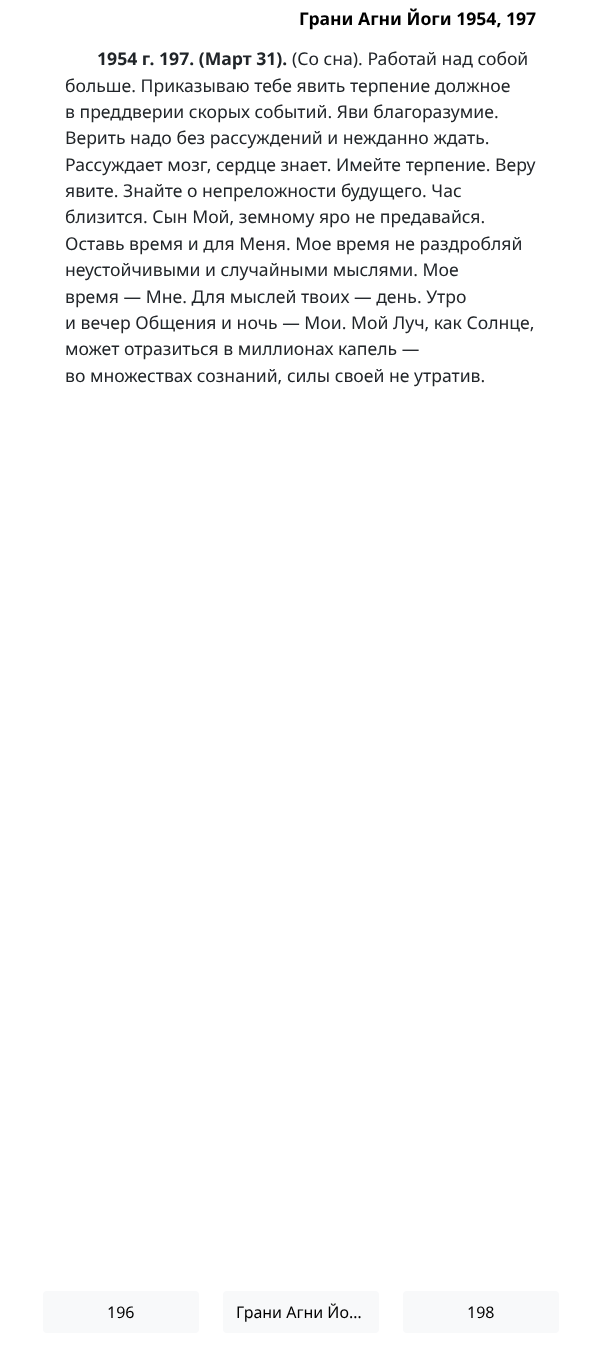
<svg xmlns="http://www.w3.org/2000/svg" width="601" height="1349">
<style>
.a{font:bold 17.6px Noto Sans;fill:#000}
.b{font:bold 17.6px Noto Sans;fill:#212529}
.c{font:17.6px Noto Sans;fill:#212529}
.d{font:16px Noto Sans;fill:#000}
</style>
<rect width="100%" height="100%" fill="#fff"/>
<rect fill="#f8f9fa" x="43" y="1291" width="156" height="42" rx="4"/>
<rect fill="#f8f9fa" x="223" y="1291" width="156" height="42" rx="4"/>
<rect fill="#f8f9fa" x="403" y="1291" width="156" height="42" rx="4"/>
<text class="a" x="299" y="25">Грани Агни Йоги 1954, 197</text>
<text class="b" x="97" y="65">1954 г. 197. (Март 31).</text>
<text class="c" x="292" y="65">(Со сна). Работай над собой</text>
<text class="c" x="65" y="92">больше. Приказываю тебе явить терпение должное</text>
<text class="c" x="65" y="118">в преддверии скорых событий. Яви благоразумие.</text>
<text class="c" x="65" y="144">Верить надо без рассуждений и нежданно ждать.</text>
<text class="c" x="65" y="171">Рассуждает мозг, сердце знает. Имейте терпение. Веру</text>
<text class="c" x="65" y="197">явите. Знайте о непреложности будущего. Час</text>
<text class="c" x="65" y="223">близится. Сын Мой, земному яро не предавайся.</text>
<text class="c" x="65" y="250">Оставь время и для Меня. Мое время не раздробляй</text>
<text class="c" x="65" y="276">неустойчивыми и случайными мыслями. Мое</text>
<text class="c" x="65" y="303">время — Мне. Для мыслей твоих — день. Утро</text>
<text class="c" x="65" y="329">и вечер Общения и ночь — Мои. Мой Луч, как Солнце,</text>
<text class="c" x="65" y="355">может отразиться в миллионах капель —</text>
<text class="c" x="65" y="382">во множествах сознаний, силы своей не утратив.</text>
<text class="d" x="107" y="1318">196</text>
<text class="d" x="236" y="1318">Грани Агни Йо…</text>
<text class="d" x="467" y="1318">198</text>
</svg>
